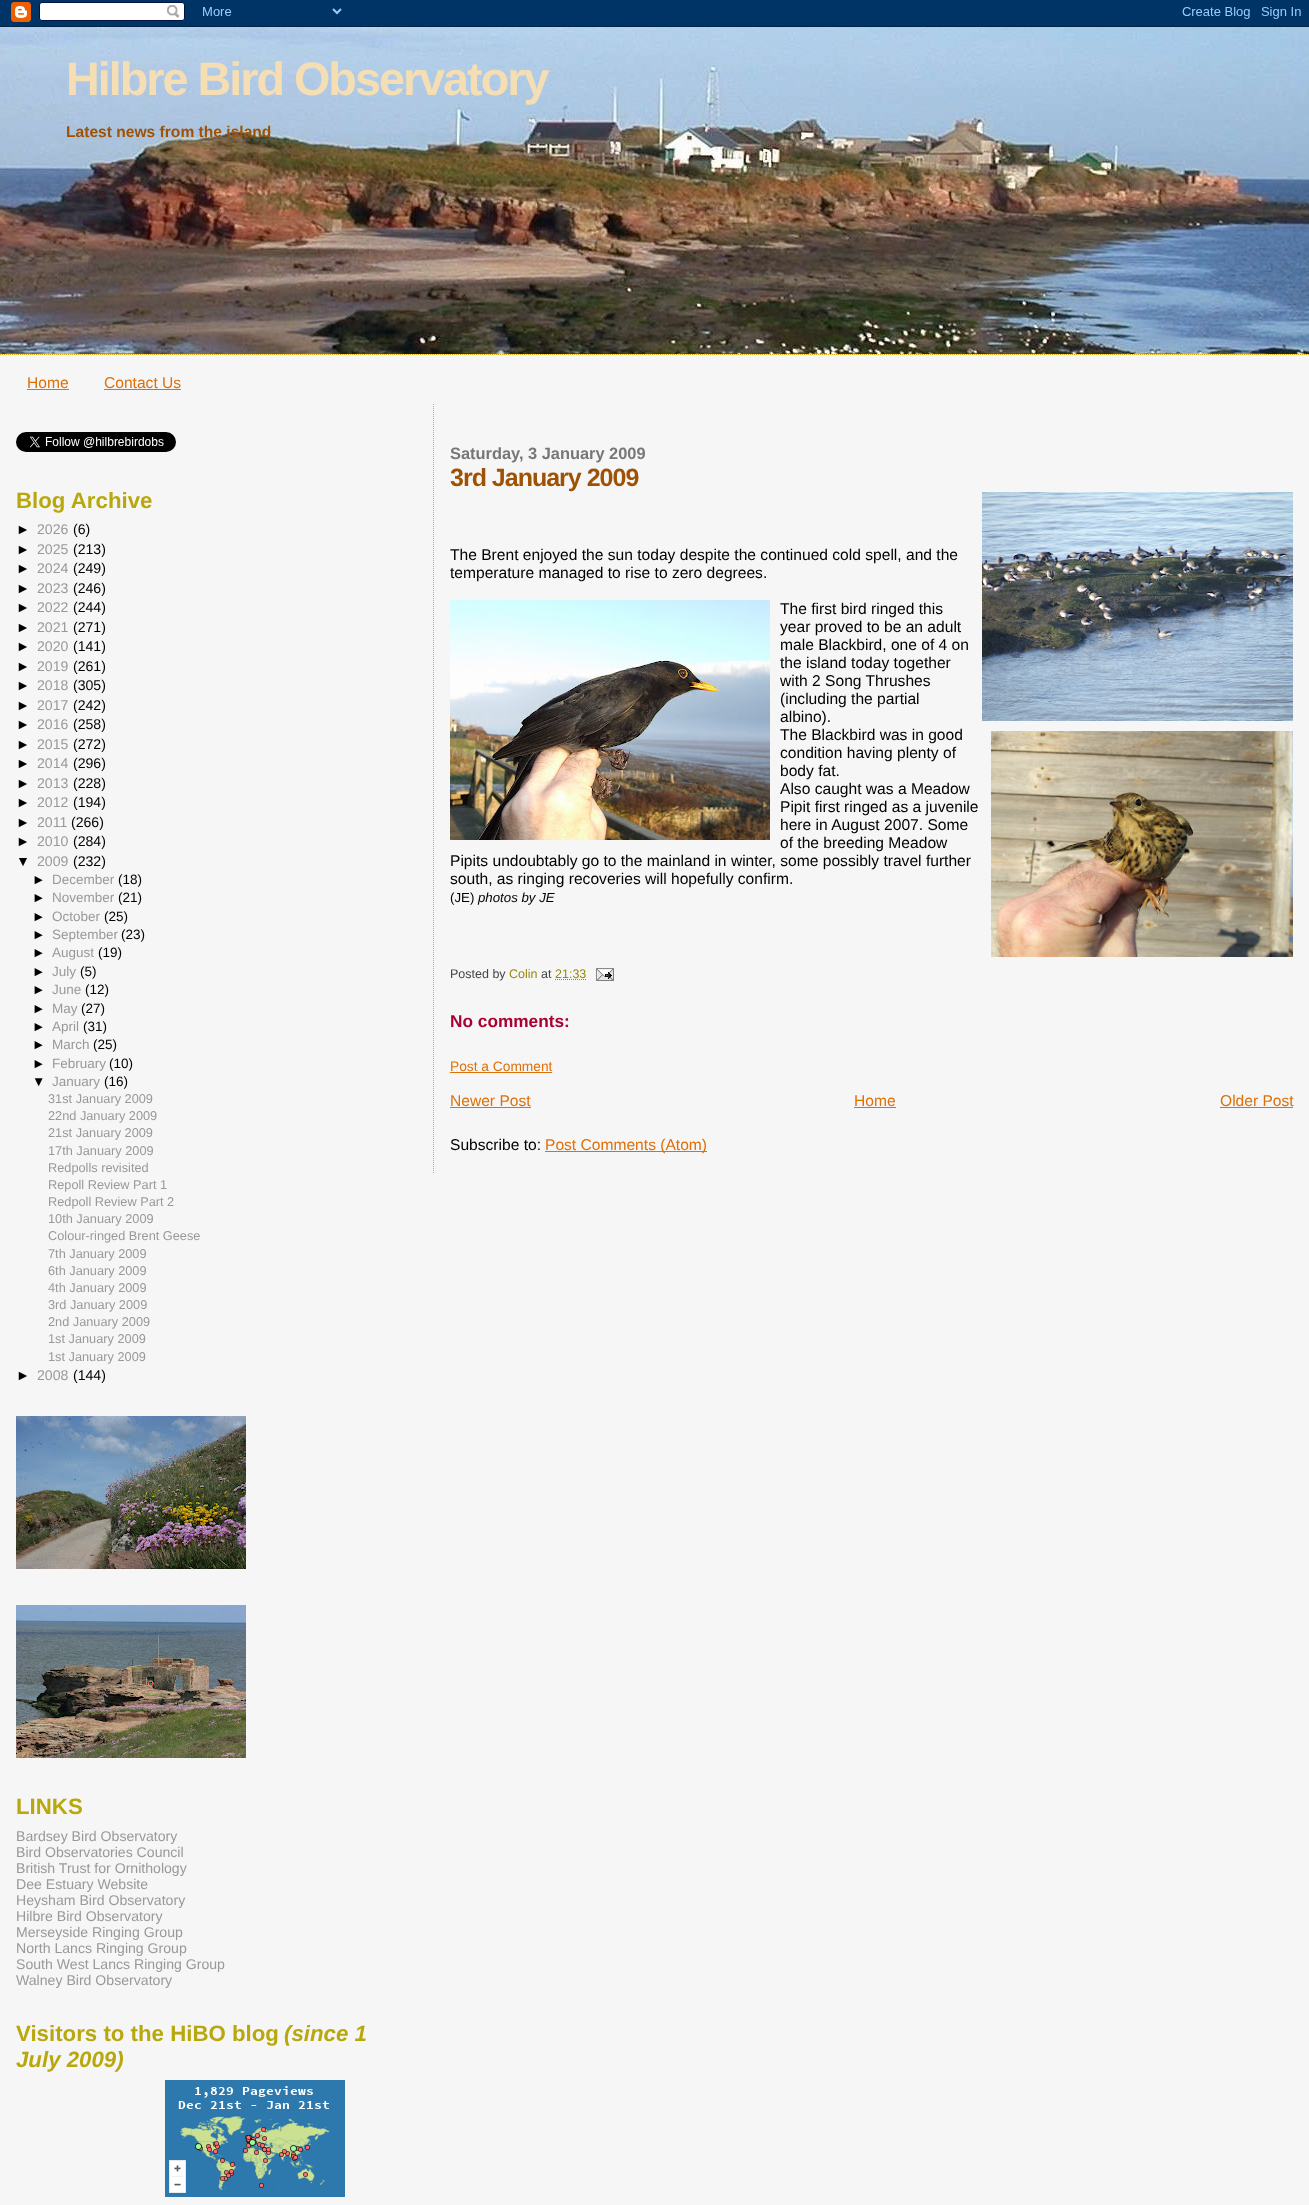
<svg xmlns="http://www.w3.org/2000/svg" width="1309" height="2205">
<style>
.a{font:bold 46.75px Liberation Sans;letter-spacing:-2px;fill:#f5deb3}
.b{font:bold 15.6px Liberation Sans;fill:#9e5205}
.c{font:15.6px Liberation Sans;fill:#de7008}
.d{font:bold 22.25px Liberation Sans;fill:#b8a80d}
.e{font:14.1px Liberation Sans;fill:#000}
.f{font:14.1px Liberation Sans;fill:#999}
.g{font:13.5px Liberation Sans;fill:#000}
.h{font:13.5px Liberation Sans;fill:#999}
.i{font:12.75px Liberation Sans;fill:#999}
.j{font:italic bold 22.25px Liberation Sans;fill:#b8a80d}
.k{font:bold 16.4px Liberation Sans;fill:#777}
.l{font:bold 25px Liberation Sans;letter-spacing:-1px;fill:#9e5205}
.m{font:15.6px Liberation Sans;fill:#000}
.n{font:13.25px Liberation Sans;fill:#000}
.o{font:italic 13.25px Liberation Sans;fill:#000}
.p{font:12.5px Liberation Sans;fill:#444}
.q{font:12.5px Liberation Sans;fill:#968a0a}
.r{font:bold 17.25px Liberation Sans;fill:#a03}
.s{font:13.75px Liberation Sans;fill:#de7008}
</style>
<rect width="100%" height="100%" fill="#f6f6f6"/>
<image href="1.png" x="0" y="0" width="1309" height="27"/>
<path fill="#f5e39e" d="M1 354h1307v1H1z"/>
<path fill="none" stroke="#e0ad12" stroke-dasharray="1 1" d="M0 354.5h1309"/>
<image href="2.png" x="0" y="27" width="1309" height="327"/>
<path fill="#de7008" d="M27 389h42v1H27z"/>
<path fill="#de7008" d="M104 389h77v1H104z"/>
<image href="3.png" x="16" y="432" width="160" height="20"/>
<image href="4.png" x="16" y="1416" width="230" height="153"/>
<image href="5.png" x="16" y="1605" width="230" height="153"/>
<image href="6.png" x="165" y="2080" width="180" height="117"/>
<path fill="none" stroke="#e0ad12" stroke-dasharray="1 1" d="M433.5 404v770"/>
<image href="7.png" x="450" y="600" width="320" height="240"/>
<image href="8.png" x="991" y="731" width="302" height="226"/>
<image href="9.png" x="982" y="492" width="311" height="229"/>
<path fill="none" stroke="#968a0a" stroke-dasharray="1 1" d="M555 979.5h31"/>
<image href="10.png" x="596" y="968" width="18" height="13"/>
<path fill="#de7008" d="M450 1072h102v1H450z"/>
<path fill="#de7008" d="M450 1107h81v1H450z"/>
<path fill="#de7008" d="M854 1107h42v1H854z"/>
<path fill="#de7008" d="M1220 1107h73v1H1220z"/>
<path fill="#de7008" d="M545 1151h162v1H545z"/>
<text class="a" x="66" y="95">Hilbre Bird Observatory</text>
<text class="b" x="66" y="137">Latest news from the island</text>
<text class="c" x="27" y="388">Home</text>
<text class="c" x="104" y="388">Contact Us</text>
<text class="d" x="16" y="508">Blog Archive</text>
<text class="e" x="16" y="534">►</text>
<text class="f" x="37" y="534">2026</text>
<text class="e" x="73" y="534">(6)</text>
<text class="e" x="16" y="554">►</text>
<text class="f" x="37" y="554">2025</text>
<text class="e" x="73" y="554">(213)</text>
<text class="e" x="16" y="573">►</text>
<text class="f" x="37" y="573">2024</text>
<text class="e" x="73" y="573">(249)</text>
<text class="e" x="16" y="593">►</text>
<text class="f" x="37" y="593">2023</text>
<text class="e" x="73" y="593">(246)</text>
<text class="e" x="16" y="612">►</text>
<text class="f" x="37" y="612">2022</text>
<text class="e" x="73" y="612">(244)</text>
<text class="e" x="16" y="632">►</text>
<text class="f" x="37" y="632">2021</text>
<text class="e" x="73" y="632">(271)</text>
<text class="e" x="16" y="651">►</text>
<text class="f" x="37" y="651">2020</text>
<text class="e" x="73" y="651">(141)</text>
<text class="e" x="16" y="671">►</text>
<text class="f" x="37" y="671">2019</text>
<text class="e" x="73" y="671">(261)</text>
<text class="e" x="16" y="690">►</text>
<text class="f" x="37" y="690">2018</text>
<text class="e" x="73" y="690">(305)</text>
<text class="e" x="16" y="710">►</text>
<text class="f" x="37" y="710">2017</text>
<text class="e" x="73" y="710">(242)</text>
<text class="e" x="16" y="729">►</text>
<text class="f" x="37" y="729">2016</text>
<text class="e" x="73" y="729">(258)</text>
<text class="e" x="16" y="749">►</text>
<text class="f" x="37" y="749">2015</text>
<text class="e" x="73" y="749">(272)</text>
<text class="e" x="16" y="768">►</text>
<text class="f" x="37" y="768">2014</text>
<text class="e" x="73" y="768">(296)</text>
<text class="e" x="16" y="788">►</text>
<text class="f" x="37" y="788">2013</text>
<text class="e" x="73" y="788">(228)</text>
<text class="e" x="16" y="807">►</text>
<text class="f" x="37" y="807">2012</text>
<text class="e" x="73" y="807">(194)</text>
<text class="e" x="16" y="827">►</text>
<text class="f" x="37" y="827">2011</text>
<text class="e" x="71" y="827">(266)</text>
<text class="e" x="16" y="846">►</text>
<text class="f" x="37" y="846">2010</text>
<text class="e" x="73" y="846">(284)</text>
<text class="e" x="16" y="866">▼</text>
<text class="f" x="37" y="866">2009</text>
<text class="e" x="73" y="866">(232)</text>
<text class="g" x="32" y="884">►</text>
<text class="h" x="52" y="884">December</text>
<text class="g" x="118" y="884">(18)</text>
<text class="g" x="32" y="902">►</text>
<text class="h" x="52" y="902">November</text>
<text class="g" x="118" y="902">(21)</text>
<text class="g" x="32" y="921">►</text>
<text class="h" x="52" y="921">October</text>
<text class="g" x="104" y="921">(25)</text>
<text class="g" x="32" y="939">►</text>
<text class="h" x="52" y="939">September</text>
<text class="g" x="121" y="939">(23)</text>
<text class="g" x="32" y="957">►</text>
<text class="h" x="52" y="957">August</text>
<text class="g" x="98" y="957">(19)</text>
<text class="g" x="32" y="976">►</text>
<text class="h" x="52" y="976">July</text>
<text class="g" x="80" y="976">(5)</text>
<text class="g" x="32" y="994">►</text>
<text class="h" x="52" y="994">June</text>
<text class="g" x="85" y="994">(12)</text>
<text class="g" x="32" y="1013">►</text>
<text class="h" x="52" y="1013">May</text>
<text class="g" x="81" y="1013">(27)</text>
<text class="g" x="32" y="1031">►</text>
<text class="h" x="52" y="1031">April</text>
<text class="g" x="83" y="1031">(31)</text>
<text class="g" x="32" y="1049">►</text>
<text class="h" x="52" y="1049">March</text>
<text class="g" x="93" y="1049">(25)</text>
<text class="g" x="32" y="1068">►</text>
<text class="h" x="52" y="1068">February</text>
<text class="g" x="109" y="1068">(10)</text>
<text class="g" x="32" y="1086">▼</text>
<text class="h" x="52" y="1086">January</text>
<text class="g" x="104" y="1086">(16)</text>
<text class="i" x="48" y="1103">31st January 2009</text>
<text class="i" x="48" y="1120">22nd January 2009</text>
<text class="i" x="48" y="1137">21st January 2009</text>
<text class="i" x="48" y="1155">17th January 2009</text>
<text class="i" x="48" y="1172">Redpolls revisited</text>
<text class="i" x="48" y="1189">Repoll Review Part 1</text>
<text class="i" x="48" y="1206">Redpoll Review Part 2</text>
<text class="i" x="48" y="1223">10th January 2009</text>
<text class="i" x="48" y="1240">Colour-ringed Brent Geese</text>
<text class="i" x="48" y="1258">7th January 2009</text>
<text class="i" x="48" y="1275">6th January 2009</text>
<text class="i" x="48" y="1292">4th January 2009</text>
<text class="i" x="48" y="1309">3rd January 2009</text>
<text class="i" x="48" y="1326">2nd January 2009</text>
<text class="i" x="48" y="1343">1st January 2009</text>
<text class="i" x="48" y="1361">1st January 2009</text>
<text class="e" x="16" y="1380">►</text>
<text class="f" x="37" y="1380">2008</text>
<text class="e" x="73" y="1380">(144)</text>
<text class="d" x="16" y="1814">LINKS</text>
<text class="f" x="16" y="1841">Bardsey Bird Observatory</text>
<text class="f" x="16" y="1857">Bird Observatories Council</text>
<text class="f" x="16" y="1873">British Trust for Ornithology</text>
<text class="f" x="16" y="1889">Dee Estuary Website</text>
<text class="f" x="16" y="1905">Heysham Bird Observatory</text>
<text class="f" x="16" y="1921">Hilbre Bird Observatory</text>
<text class="f" x="16" y="1937">Merseyside Ringing Group</text>
<text class="f" x="16" y="1953">North Lancs Ringing Group</text>
<text class="f" x="16" y="1969">South West Lancs Ringing Group</text>
<text class="f" x="16" y="1985">Walney Bird Observatory</text>
<text class="d" x="16" y="2041">Visitors to the HiBO blog</text>
<text class="j" x="284" y="2041">(since 1</text>
<text class="j" x="16" y="2067">July 2009)</text>
<text class="k" x="450" y="459">Saturday, 3 January 2009</text>
<text class="l" x="450" y="486">3rd January 2009</text>
<text class="m" x="450" y="560">The Brent enjoyed the sun today despite the continued cold spell, and the</text>
<text class="m" x="450" y="578">temperature managed to rise to zero degrees.</text>
<text class="m" x="780" y="614">The first bird ringed this</text>
<text class="m" x="780" y="632">year proved to be an adult</text>
<text class="m" x="780" y="650">male Blackbird, one of 4 on</text>
<text class="m" x="780" y="668">the island today together</text>
<text class="m" x="780" y="686">with 2 Song Thrushes</text>
<text class="m" x="780" y="704">(including the partial</text>
<text class="m" x="780" y="722">albino).</text>
<text class="m" x="780" y="740">The Blackbird was in good</text>
<text class="m" x="780" y="758">condition having plenty of</text>
<text class="m" x="780" y="776">body fat.</text>
<text class="m" x="780" y="794">Also caught was a Meadow</text>
<text class="m" x="780" y="812">Pipit first ringed as a juvenile</text>
<text class="m" x="780" y="830">here in August 2007. Some</text>
<text class="m" x="780" y="848">of the breeding Meadow</text>
<text class="m" x="450" y="866">Pipits undoubtably go to the mainland in winter, some possibly travel further</text>
<text class="m" x="450" y="884">south, as ringing recoveries will hopefully confirm.</text>
<text class="n" x="450" y="902">(JE)</text>
<text class="o" x="478" y="902">photos by JE</text>
<text class="p" x="450" y="978">Posted by</text>
<text class="q" x="509" y="978">Colin</text>
<text class="p" x="541" y="978">at</text>
<text class="q" x="555" y="978">21:33</text>
<text class="r" x="450" y="1027">No comments:</text>
<text class="s" x="450" y="1071">Post a Comment</text>
<text class="c" x="450" y="1106">Newer Post</text>
<text class="c" x="854" y="1106">Home</text>
<text class="c" x="1220" y="1106">Older Post</text>
<text class="m" x="450" y="1150">Subscribe to:</text>
<text class="c" x="545" y="1150">Post Comments (Atom)</text>
</svg>
